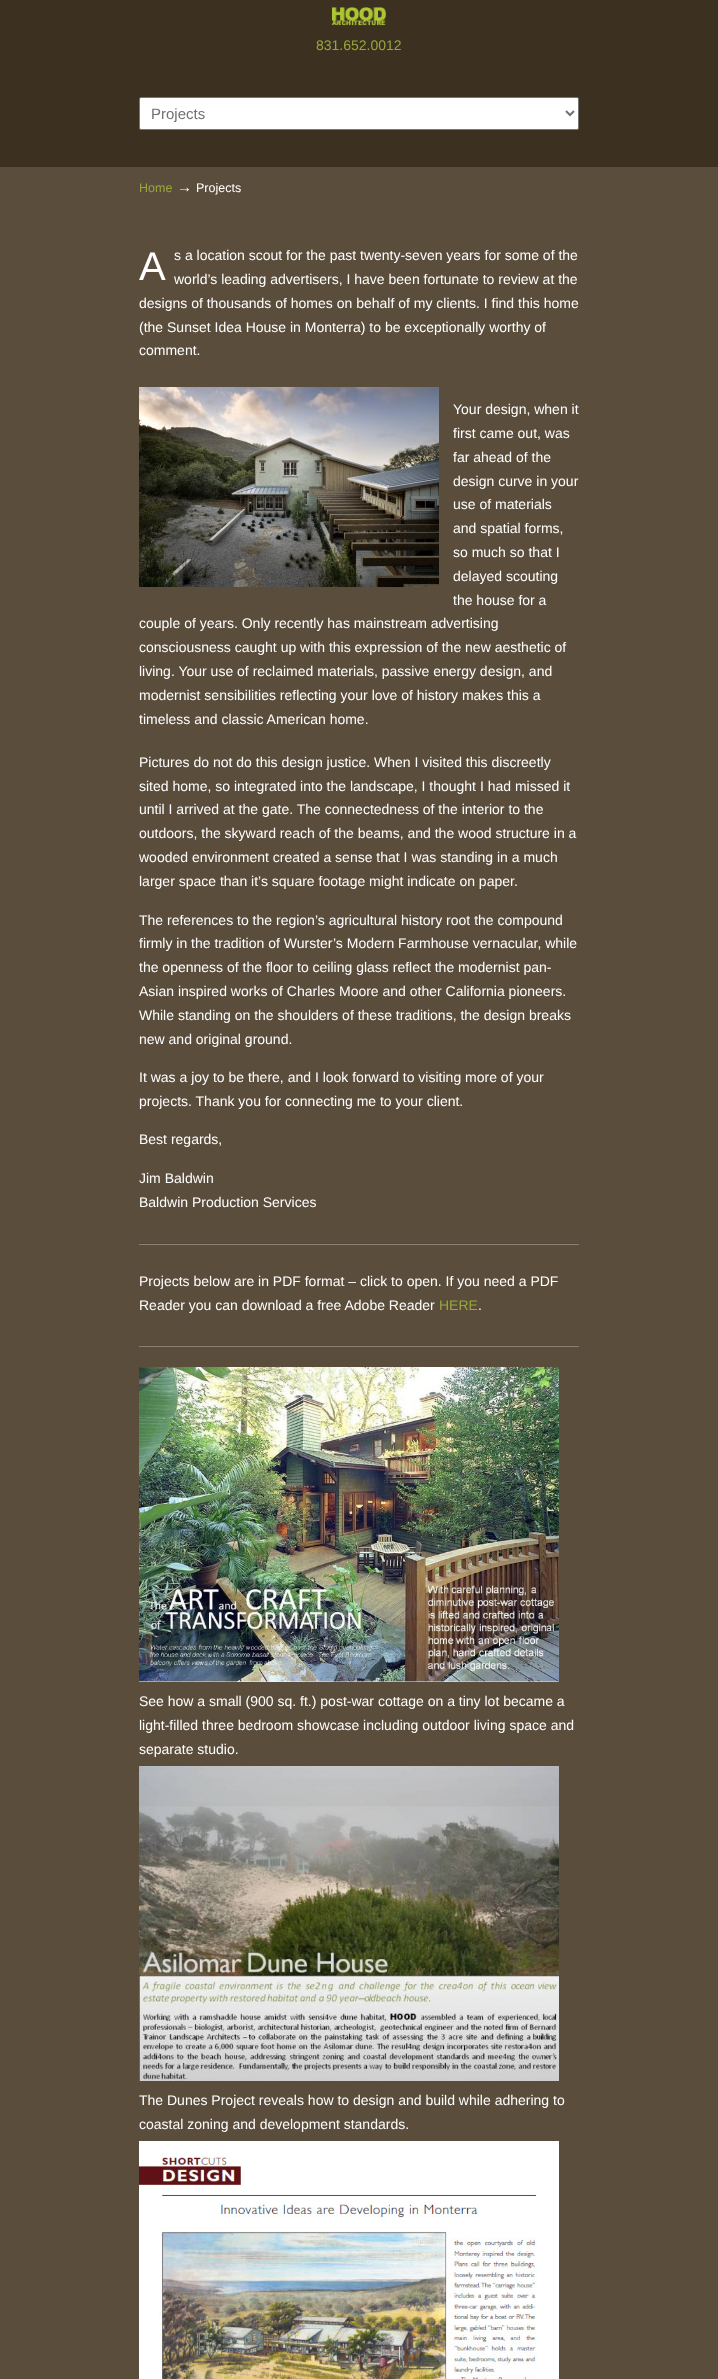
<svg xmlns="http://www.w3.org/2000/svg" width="718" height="2379">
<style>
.a{font:14px Liberation Sans;fill:#97a73c}
.b{font:15px Liberation Sans;fill:#717171}
.c{font:12.5px Liberation Sans;fill:#97a73c}
.d{font:15px Liberation Sans;fill:#fff}
.e{font:12.5px Liberation Sans;fill:#fff}
.f{font:40px Liberation Sans;fill:#fff}
.g{font:14px Liberation Sans;fill:#fff}
</style>
<rect width="100%" height="100%" fill="#5a4d3b"/>
<path fill="#3c3120" d="M0 0h718v167H0z"/>
<image href="1.png" x="332" y="7" width="55" height="19"/>
<rect fill="#fff" stroke="#767676" x="139.5" y="97.5" width="439" height="32" rx="1.5"/>
<path fill="none" stroke="#717171" stroke-width="2" d="M566 111l4 4l4-4"/>
<image href="2.png" x="139" y="387" width="300" height="200"/>
<image href="3.png" x="139" y="1243" width="440" height="2"/>
<image href="3.png" x="139" y="1345" width="440" height="2"/>
<image href="4.png" x="139" y="1367" width="420" height="315"/>
<image href="5.png" x="139" y="1766" width="420" height="315"/>
<image href="6.png" x="139" y="2141" width="420" height="238"/>
<text class="a" x="316" y="50">831.652.0012</text>
<text class="b" x="151" y="119">Projects</text>
<text class="c" x="139" y="192">Home</text>
<text class="d" x="177" y="192">→</text>
<text class="e" x="196" y="192">Projects</text>
<text class="f" x="139" y="280">A</text>
<text class="g" x="174" y="260">s a location scout for the past twenty-seven years for some of the</text>
<text class="g" x="174" y="284">world’s leading advertisers, I have been fortunate to review at the</text>
<text class="g" x="139" y="308">designs of thousands of homes on behalf of my clients. I find this home</text>
<text class="g" x="139" y="332">(the Sunset Idea House in Monterra) to be exceptionally worthy of</text>
<text class="g" x="139" y="355">comment.</text>
<text class="g" x="453" y="414">Your design, when it</text>
<text class="g" x="453" y="438">first came out, was</text>
<text class="g" x="453" y="462">far ahead of the</text>
<text class="g" x="453" y="486">design curve in your</text>
<text class="g" x="453" y="509">use of materials</text>
<text class="g" x="453" y="533">and spatial forms,</text>
<text class="g" x="453" y="557">so much so that I</text>
<text class="g" x="453" y="581">delayed scouting</text>
<text class="g" x="453" y="605">the house for a</text>
<text class="g" x="139" y="628">couple of years. Only recently has mainstream advertising</text>
<text class="g" x="139" y="652">consciousness caught up with this expression of the new aesthetic of</text>
<text class="g" x="139" y="676">living. Your use of reclaimed materials, passive energy design, and</text>
<text class="g" x="139" y="700">modernist sensibilities reflecting your love of history makes this a</text>
<text class="g" x="139" y="724">timeless and classic American home.</text>
<text class="g" x="139" y="767">Pictures do not do this design justice. When I visited this discreetly</text>
<text class="g" x="139" y="791">sited home, so integrated into the landscape, I thought I had missed it</text>
<text class="g" x="139" y="814">until I arrived at the gate. The connectedness of the interior to the</text>
<text class="g" x="139" y="838">outdoors, the skyward reach of the beams, and the wood structure in a</text>
<text class="g" x="139" y="862">wooded environment created a sense that I was standing in a much</text>
<text class="g" x="139" y="886">larger space than it’s square footage might indicate on paper.</text>
<text class="g" x="139" y="925">The references to the region’s agricultural history root the compound</text>
<text class="g" x="139" y="948">firmly in the tradition of Wurster’s Modern Farmhouse vernacular, while</text>
<text class="g" x="139" y="972">the openness of the floor to ceiling glass reflect the modernist pan-</text>
<text class="g" x="139" y="996">Asian inspired works of Charles Moore and other California pioneers.</text>
<text class="g" x="139" y="1020">While standing on the shoulders of these traditions, the design breaks</text>
<text class="g" x="139" y="1044">new and original ground.</text>
<text class="g" x="139" y="1082">It was a joy to be there, and I look forward to visiting more of your</text>
<text class="g" x="139" y="1106">projects. Thank you for connecting me to your client.</text>
<text class="g" x="139" y="1144">Best regards,</text>
<text class="g" x="139" y="1183">Jim Baldwin</text>
<text class="g" x="139" y="1207">Baldwin Production Services</text>
<text class="g" x="139" y="1286">Projects below are in PDF format – click to open. If you need a PDF</text>
<text class="g" x="139" y="1310">Reader you can download a free Adobe Reader</text>
<text class="a" x="439" y="1310">HERE</text>
<text class="g" x="478" y="1310">.</text>
<text class="g" x="139" y="1706">See how a small (900 sq. ft.) post-war cottage on a tiny lot became a</text>
<text class="g" x="139" y="1730">light-filled three bedroom showcase including outdoor living space and</text>
<text class="g" x="139" y="1754">separate studio.</text>
<text class="g" x="139" y="2105">The Dunes Project reveals how to design and build while adhering to</text>
<text class="g" x="139" y="2129">coastal zoning and development standards.</text>
</svg>
